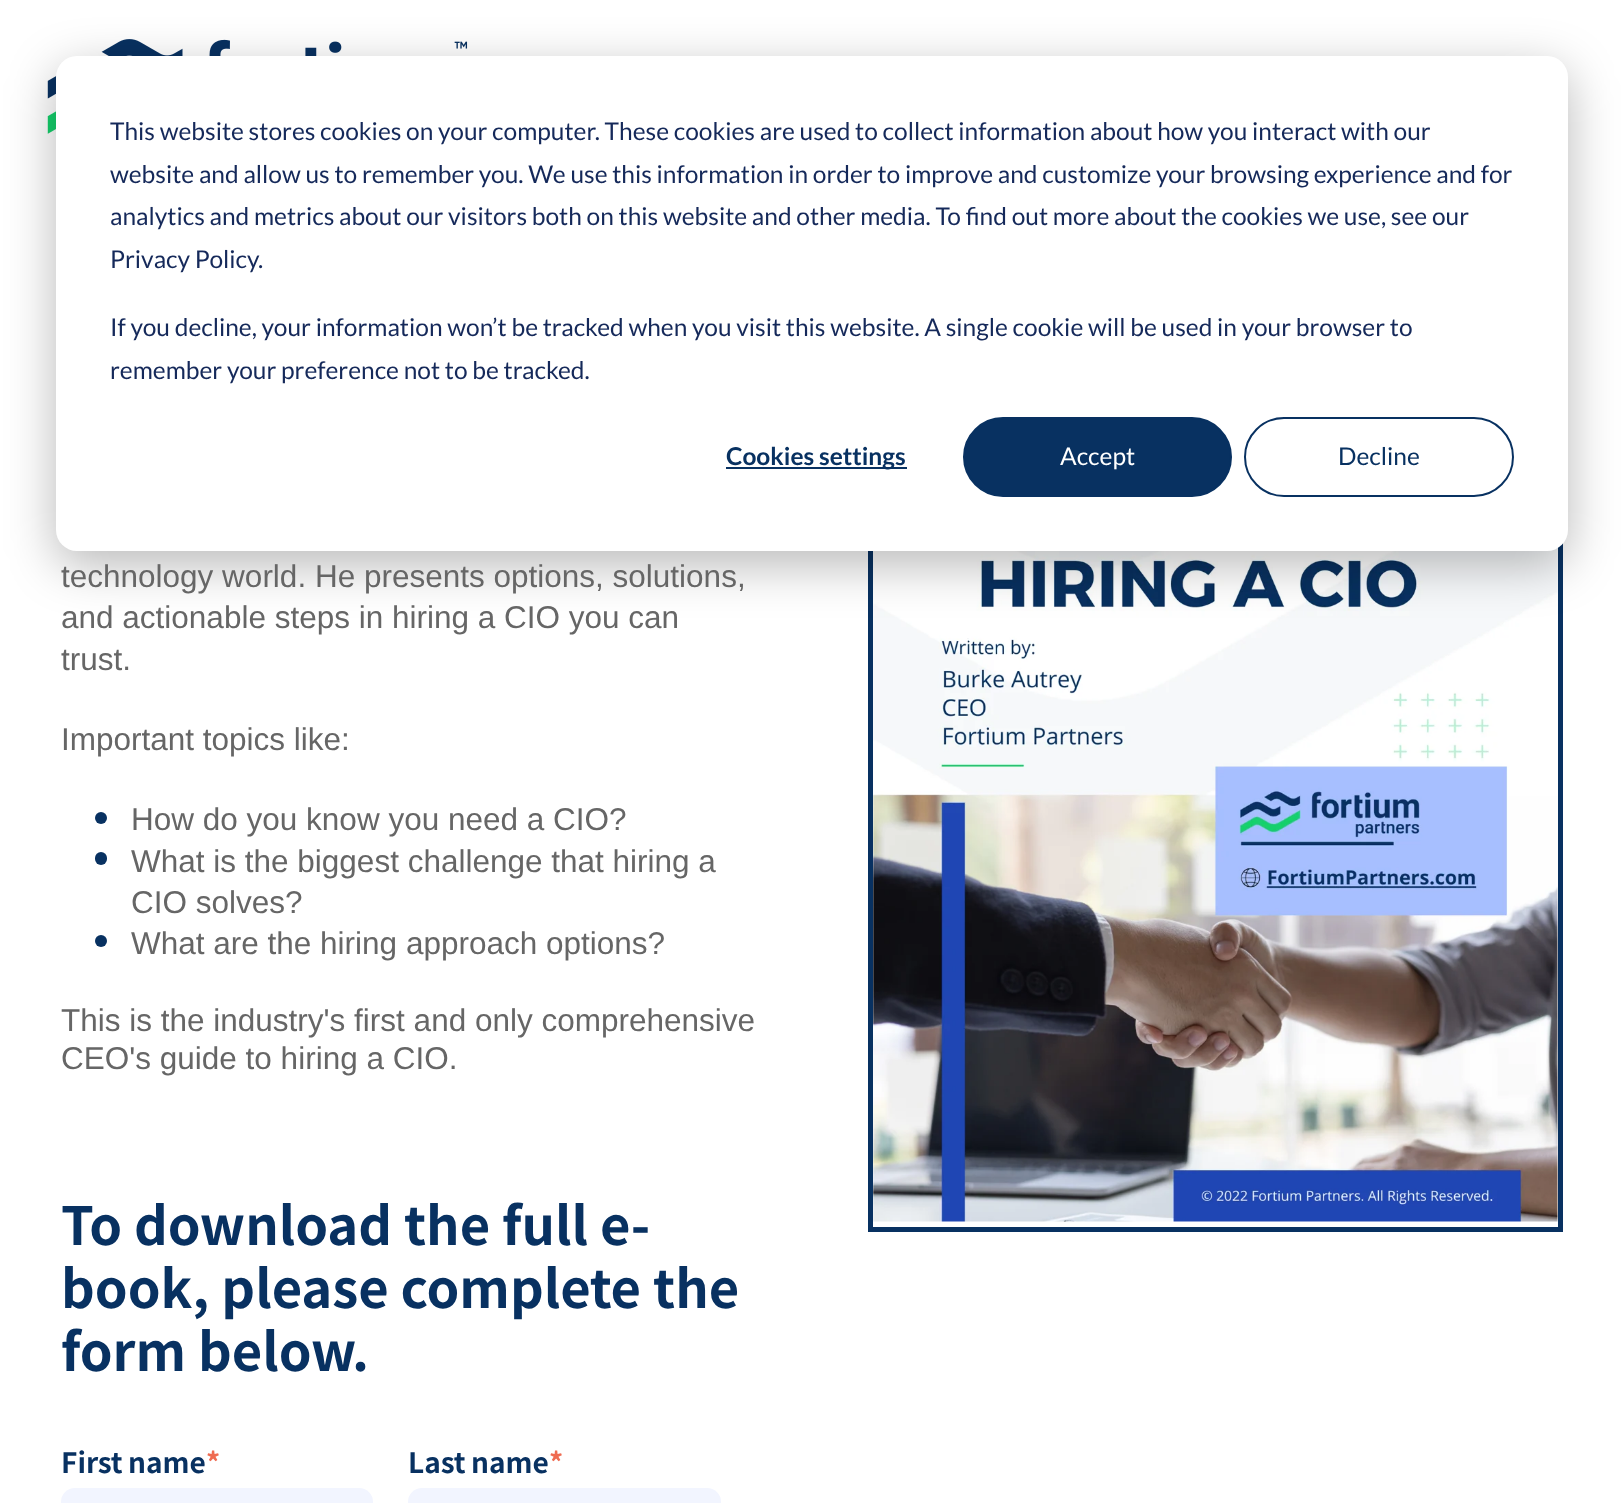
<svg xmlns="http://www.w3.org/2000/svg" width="1624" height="1503">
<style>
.a{font:24.5px Lato;fill:#15295a}
.b{font:bold 24.5px Lato;fill:#083161}
.c{font:24.5px Lato;fill:#fff}
.d{font:24.5px Lato;fill:#083161}
.e{font:31.5px Liberation Sans;fill:#666}
.f{font:bold 52.5px Noto Sans JP;fill:#083161}
.g{font:bold 28px Noto Sans JP;fill:#083161}
.h{font:bold 28px Noto Sans JP;fill:#ef6b51}
</style>
<rect width="100%" height="100%" fill="#fff"/>
<image href="1.png" x="47" y="39" width="421" height="95"/>
<path fill="none" stroke="#083161" stroke-width="5" d="M870.5 252.5h690v977H870.5z"/>
<image href="2.png" x="873" y="547" width="685" height="675"/>
<rect fill="#00000047" filter="blur(24.5px)" x="56" y="70" width="1512" height="495" rx="21"/>
<rect fill="#fff" x="56" y="56" width="1512" height="495" rx="21"/>
<path fill="#083161" d="M726 467h181v2H726z"/>
<rect fill="#083161" stroke="#083161" stroke-width="2" x="964" y="418" width="267" height="78" rx="39"/>
<rect fill="none" stroke="#083161" stroke-width="2" x="1245" y="418" width="268" height="78" rx="39"/>
<circle fill="#083161" cx="101" cy="818" r="6"/>
<rect fill="#083161" x="95" y="852" width="12" height="13" rx="6"/>
<circle fill="#083161" cx="101" cy="941" r="6"/>
<rect fill="#f2f5ff" x="61" y="1488" width="312" height="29" rx="14"/>
<rect fill="#f2f5ff" x="408" y="1488" width="313" height="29" rx="14"/>
<text class="a" x="110" y="140">This website stores cookies on your computer. These cookies are used to collect information about how you interact with our</text>
<text class="a" x="110" y="183">website and allow us to remember you. We use this information in order to improve and customize your browsing experience and for</text>
<text class="a" x="110" y="225">analytics and metrics about our visitors both on this website and other media. To find out more about the cookies we use, see our</text>
<text class="a" x="110" y="268">Privacy Policy.</text>
<text class="a" x="110" y="336">If you decline, your information won’t be tracked when you visit this website. A single cookie will be used in your browser to</text>
<text class="a" x="110" y="379">remember your preference not to be tracked.</text>
<text class="b" x="726" y="465">Cookies settings</text>
<text class="c" x="1060" y="465">Accept</text>
<text class="d" x="1338" y="465">Decline</text>
<text class="e" x="61" y="587">technology world. He presents options, solutions,</text>
<text class="e" x="61" y="628">and actionable steps in hiring a CIO you can</text>
<text class="e" x="61" y="670">trust.</text>
<text class="e" x="61" y="750">Important topics like:</text>
<text class="e" x="131" y="830">How do you know you need a CIO?</text>
<text class="e" x="131" y="872">What is the biggest challenge that hiring a</text>
<text class="e" x="131" y="913">CIO solves?</text>
<text class="e" x="131" y="954">What are the hiring approach options?</text>
<text class="e" x="61" y="1031">This is the industry's first and only comprehensive</text>
<text class="e" x="61" y="1069">CEO's guide to hiring a CIO.</text>
<text class="f" x="61" y="1245">To download the full e-</text>
<text class="f" x="61" y="1308">book, please complete the</text>
<text class="f" x="61" y="1371">form below.</text>
<text class="g" x="61" y="1473" word-spacing="-1">First name</text>
<text class="h" x="206" y="1473">*</text>
<text class="g" x="408" y="1473" word-spacing="-1">Last name</text>
<text class="h" x="549" y="1473">*</text>
</svg>
